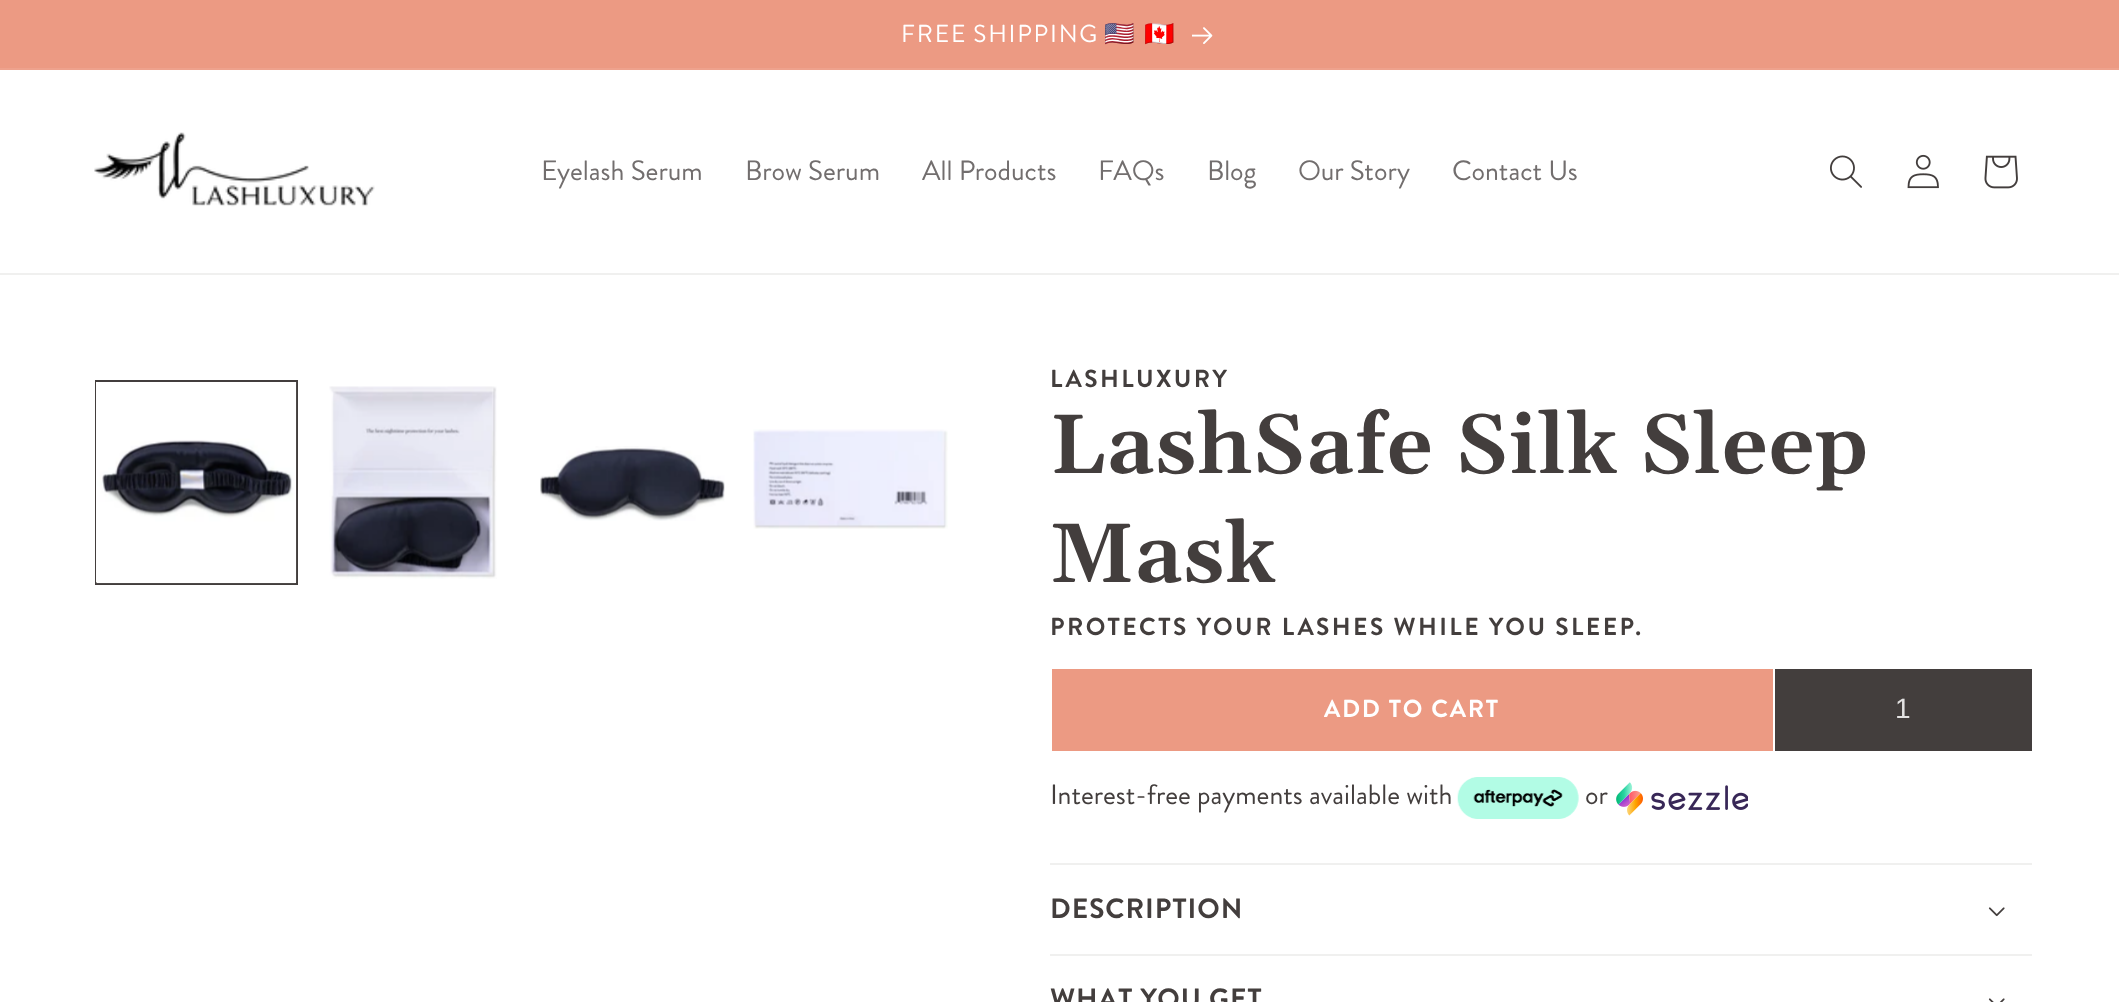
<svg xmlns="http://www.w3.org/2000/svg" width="2119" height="1002">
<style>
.a{font:24.5px Brandon Grotesque;letter-spacing:1.75px;fill:#fff}
.b{font:24.5px Noto Color Emoji;letter-spacing:1.75px;fill:#fff}
.c{font:28px Brandon Grotesque;fill:#726e6e}
.d{font:bold 24.5px Brandon Grotesque;letter-spacing:2.45px;fill:#433e3d}
.e{font:600 84px Gelasio;letter-spacing:1px;fill:#433e3d}
.f{font:bold 24.5px Brandon Grotesque;letter-spacing:1.75px;fill:#fff}
.g{font:28px Liberation Sans;fill:#e3e2e2}
.h{font:28px Brandon Grotesque;fill:#433e3d}
.i{font:bold 28px Brandon Grotesque;letter-spacing:1px;fill:#433e3d}
</style>
<rect width="100%" height="100%" fill="#fff"/>
<path fill="#ec9a83" d="M0 0h2119v68H0z"/>
<path fill="#eea28d" d="M0 68h2119v2H0z"/>
<image href="1.png" x="1192" y="27" width="21" height="17"/>
<path fill="#f0f0ef" d="M0 273h2119v2H0z"/>
<image href="2.png" x="94" y="132" width="281" height="75"/>
<image href="3.png" x="1830" y="155" width="32" height="33"/>
<image href="4.png" x="1907" y="154" width="32" height="35"/>
<image href="5.png" x="1984" y="155" width="34" height="34"/>
<path fill="none" stroke="#433e3d" stroke-width="2" d="M96 381h201v203H96z"/>
<image href="6.png" x="96" y="382" width="201" height="202"/>
<image href="7.png" x="329" y="386" width="168" height="193"/>
<image href="8.png" x="540" y="446" width="185" height="75"/>
<image href="9.png" x="753" y="429" width="195" height="100"/>
<path fill="#ec9a83" d="M1052 669h721v82H1052z"/>
<path fill="#433e3d" d="M1775 669h257v82H1775z"/>
<image href="10.png" x="1457" y="777" width="122" height="42"/>
<image href="11.png" x="1616" y="782" width="132" height="34"/>
<path fill="#f0f0ef" d="M1050 863h982v2H1050z"/>
<path fill="#f0f0ef" d="M1050 954h982v2H1050z"/>
<image href="12.png" x="1988" y="907" width="17" height="10"/>
<image href="13.png" x="1988" y="998" width="17" height="4"/>
<text class="a" x="901" y="42" word-spacing="-1">FREE SHIPPING</text>
<text class="b" x="1104" y="42">🇺🇸</text>
<text class="b" x="1144" y="42">🇨🇦</text>
<text class="c" x="541" y="180">Eyelash Serum</text>
<text class="c" x="745" y="180">Brow Serum</text>
<text class="c" x="922" y="180">All Products</text>
<text class="c" x="1098" y="180">FAQs</text>
<text class="c" x="1207" y="180">Blog</text>
<text class="c" x="1298" y="180">Our Story</text>
<text class="c" x="1452" y="180">Contact Us</text>
<text class="d" x="1050" y="387">LASHLUXURY</text>
<text class="e" x="1050" y="473">LashSafe Silk Sleep</text>
<text class="e" x="1050" y="582">Mask</text>
<text class="d" x="1050" y="635">PROTECTS YOUR LASHES WHILE YOU SLEEP.</text>
<text class="f" x="1324" y="717">ADD TO CART</text>
<text class="g" x="1895" y="718">1</text>
<text class="h" x="1050" y="804">Interest-free payments available with</text>
<text class="h" x="1585" y="804">or</text>
<text class="i" x="1050" y="918">DESCRIPTION</text>
<text class="i" x="1050" y="1008">WHAT YOU GET</text>
</svg>
